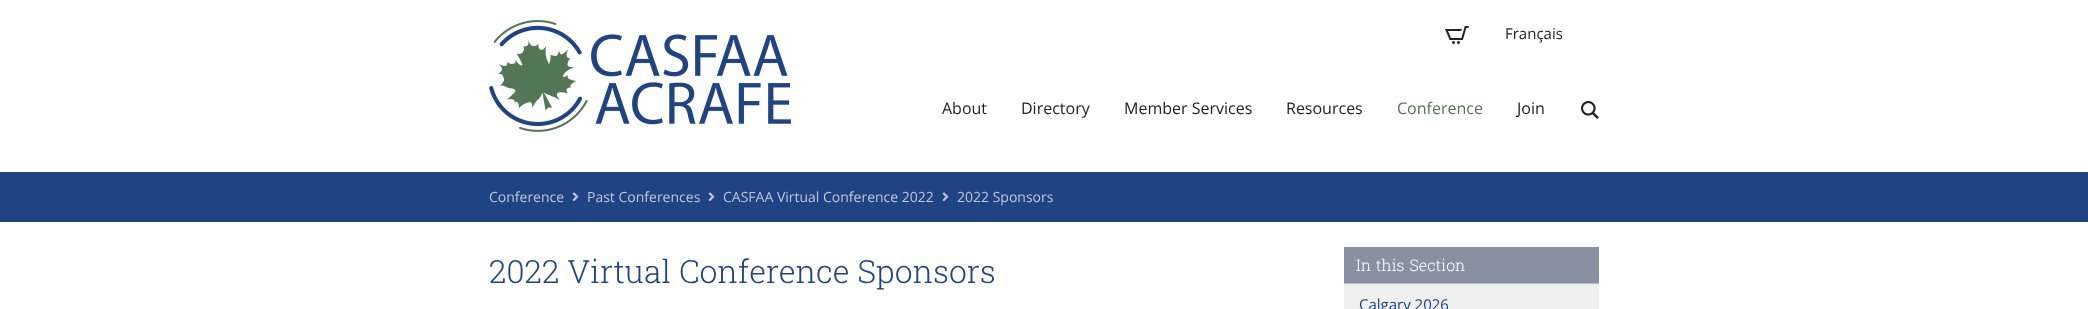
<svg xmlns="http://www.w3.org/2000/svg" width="2088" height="309">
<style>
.a{font:15px Open Sans;fill:#222}
.b{font:16px Open Sans;fill:#222}
.c{font:16px Open Sans;fill:#537656}
.d{font:14px Open Sans;fill:#bcc7da}
.e{font:300 32px Roboto Slab;fill:#204383}
.f{font:300 16px Roboto Slab;fill:#fff}
.g{font:15px Open Sans;fill:#204383}
</style>
<rect width="100%" height="100%" fill="#fff"/>
<image href="1.png" x="489" y="20" width="302" height="112"/>
<image href="2.png" x="1445" y="26" width="24" height="18"/>
<image href="3.png" x="1581" y="101" width="18" height="18"/>
<path fill="#204383" d="M0 172h2088v50H0z"/>
<image href="4.png" x="572" y="192" width="7" height="9"/>
<image href="4.png" x="708" y="192" width="7" height="9"/>
<image href="4.png" x="942" y="192" width="7" height="9"/>
<path fill="#8791a2" d="M1344 247h255v36H1344z"/>
<path fill="#bbb" d="M1344 283h255v1H1344z"/>
<path fill="#efefef" d="M1344 284h255v25H1344z"/>
<text class="a" x="1505" y="39">Français</text>
<text class="b" x="942" y="114">About</text>
<text class="b" x="1021" y="114">Directory</text>
<text class="b" x="1124" y="114">Member Services</text>
<text class="b" x="1286" y="114">Resources</text>
<text class="c" x="1397" y="114">Conference</text>
<text class="b" x="1517" y="114">Join</text>
<text class="d" x="489" y="202">Conference</text>
<text class="d" x="587" y="202">Past Conferences</text>
<text class="d" x="723" y="202">CASFAA Virtual Conference 2022</text>
<text class="d" x="957" y="202">2022 Sponsors</text>
<text class="e" x="489" y="283">2022 Virtual Conference Sponsors</text>
<text class="f" x="1356" y="271" word-spacing="1">In this Section</text>
<text class="g" x="1359" y="310">Calgary 2026</text>
</svg>
